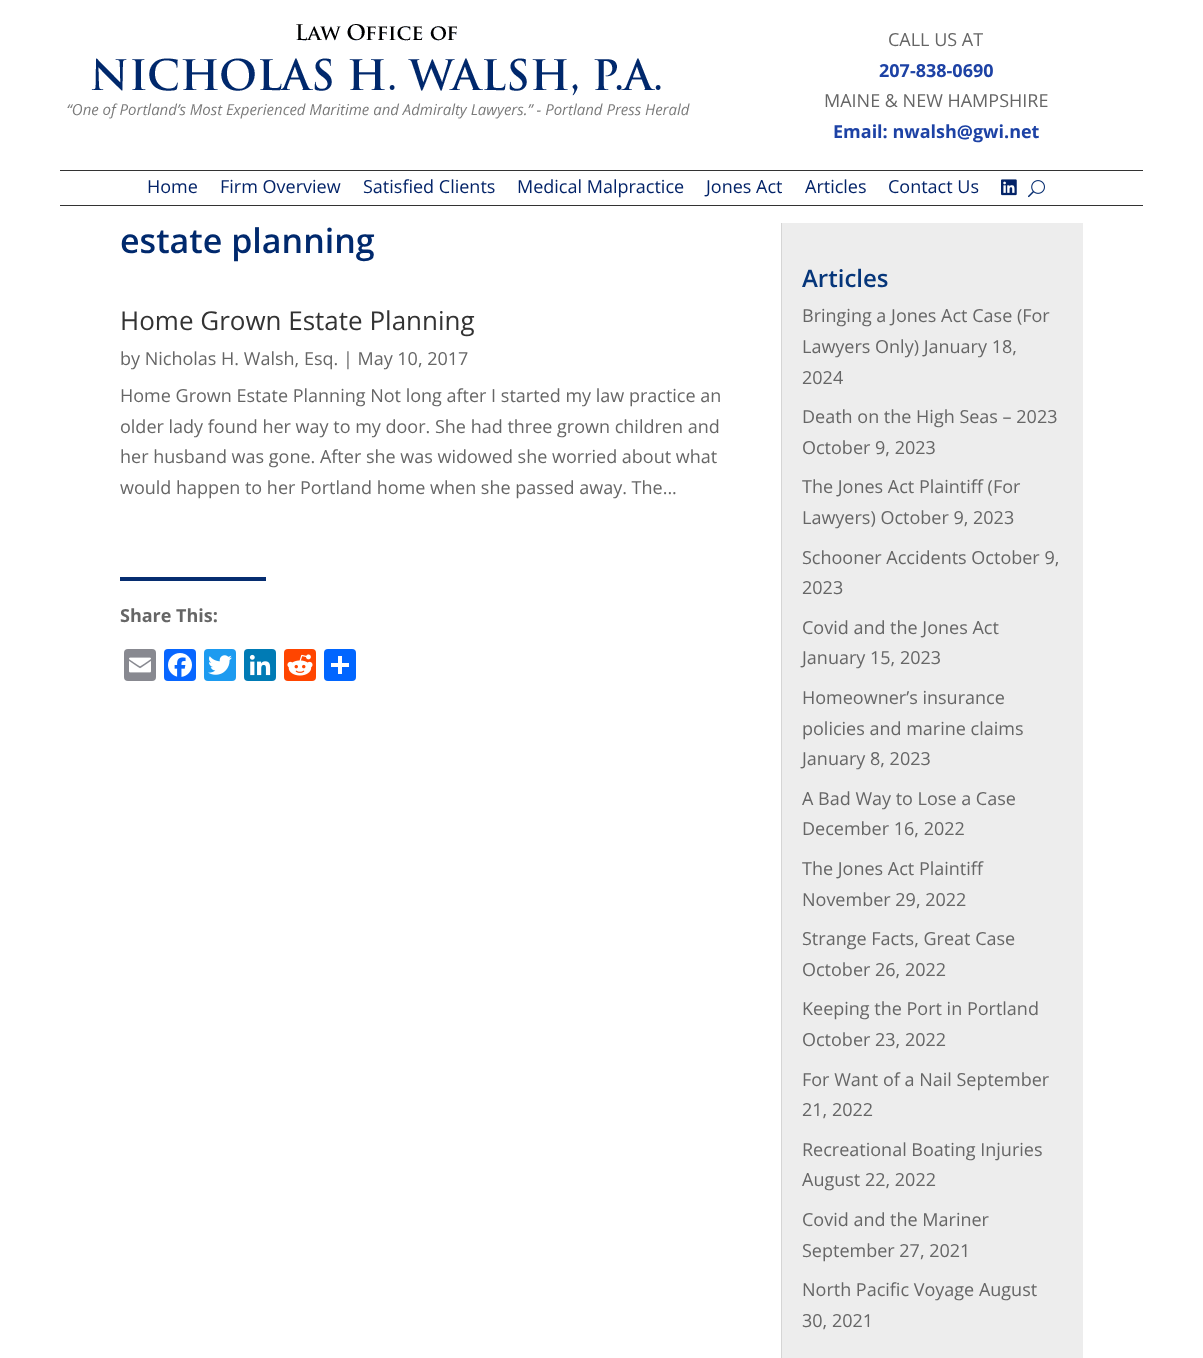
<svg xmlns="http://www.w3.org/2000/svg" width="1203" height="1358">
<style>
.a{font:18px Open Sans;fill:#666}
.b{font:bold 18px Open Sans;fill:#1d42a5}
.c{font:18px Open Sans;fill:#032368}
.d{font:600 34px Open Sans;fill:#00296d}
.e{font:26px Open Sans;fill:#333}
.f{font:bold 18px Open Sans;fill:#666}
.g{font:600 24px Open Sans;fill:#06367a}
</style>
<rect width="100%" height="100%" fill="#fff"/>
<image href="1.png" x="67" y="24" width="623" height="95"/>
<path fill="#333" d="M60 170h1083v1H60z"/>
<path fill="#333" d="M60 205h1083v1H60z"/>
<image href="2.png" x="1001" y="179" width="16" height="17"/>
<image href="3.png" x="1028" y="180" width="17" height="18"/>
<path fill="#062d70" d="M120 577h146v4H120z"/>
<rect fill="#888990" x="124" y="649" width="32" height="32" rx="4"/>
<image href="4.png" x="129" y="657" width="22" height="16"/>
<rect fill="#0866ff" x="164" y="649" width="32" height="32" rx="4"/>
<image href="5.png" x="168" y="653" width="24" height="24"/>
<rect fill="#1d9bf0" x="204" y="649" width="32" height="32" rx="4"/>
<image href="6.png" x="208" y="655" width="24" height="20"/>
<rect fill="#007bb5" x="244" y="649" width="32" height="32" rx="4"/>
<image href="7.png" x="249" y="654" width="22" height="22"/>
<rect fill="#ff4500" x="284" y="649" width="32" height="32" rx="4"/>
<image href="8.png" x="287" y="654" width="26" height="22"/>
<rect fill="#0166ff" x="324" y="649" width="32" height="32" rx="4"/>
<path fill="#fff" d="M338 656h4v18H338z"/>
<path fill="#fff" d="M331 663h18v4H331z"/>
<path fill="#ededed" d="M782 223h301v1135H782z"/>
<path fill="#d5d5d5" d="M781 223h1v1135H781z"/>
<text class="a" x="888" y="46">CALL US AT</text>
<text class="b" x="879" y="77">207-838-0690</text>
<text class="a" x="824" y="107">MAINE &amp; NEW HAMPSHIRE</text>
<text class="b" x="833" y="138">Email: nwalsh@gwi.net</text>
<text class="c" x="147" y="193">Home</text>
<text class="c" x="220" y="193">Firm Overview</text>
<text class="c" x="363" y="193">Satisfied Clients</text>
<text class="c" x="517" y="193">Medical Malpractice</text>
<text class="c" x="706" y="193">Jones Act</text>
<text class="c" x="805" y="193">Articles</text>
<text class="c" x="888" y="193">Contact Us</text>
<text class="d" x="120" y="253">estate planning</text>
<text class="e" x="120" y="330">Home Grown Estate Planning</text>
<text class="a" x="120" y="365">by Nicholas H. Walsh, Esq. | May 10, 2017</text>
<text class="a" x="120" y="402">Home Grown Estate Planning Not long after I started my law practice an</text>
<text class="a" x="120" y="433">older lady found her way to my door. She had three grown children and</text>
<text class="a" x="120" y="463">her husband was gone. After she was widowed she worried about what</text>
<text class="a" x="120" y="494">would happen to her Portland home when she passed away. The...</text>
<text class="f" x="120" y="622">Share This:</text>
<text class="g" x="802" y="287">Articles</text>
<text class="a" x="802" y="322">Bringing a Jones Act Case (For</text>
<text class="a" x="802" y="353">Lawyers Only) January 18,</text>
<text class="a" x="802" y="384">2024</text>
<text class="a" x="802" y="423">Death on the High Seas – 2023</text>
<text class="a" x="802" y="454">October 9, 2023</text>
<text class="a" x="802" y="493">The Jones Act Plaintiff (For</text>
<text class="a" x="802" y="524">Lawyers) October 9, 2023</text>
<text class="a" x="802" y="564">Schooner Accidents October 9,</text>
<text class="a" x="802" y="594">2023</text>
<text class="a" x="802" y="634">Covid and the Jones Act</text>
<text class="a" x="802" y="664">January 15, 2023</text>
<text class="a" x="802" y="704">Homeowner’s insurance</text>
<text class="a" x="802" y="735">policies and marine claims</text>
<text class="a" x="802" y="765">January 8, 2023</text>
<text class="a" x="802" y="805">A Bad Way to Lose a Case</text>
<text class="a" x="802" y="835">December 16, 2022</text>
<text class="a" x="802" y="875">The Jones Act Plaintiff</text>
<text class="a" x="802" y="906">November 29, 2022</text>
<text class="a" x="802" y="945">Strange Facts, Great Case</text>
<text class="a" x="802" y="976">October 26, 2022</text>
<text class="a" x="802" y="1015">Keeping the Port in Portland</text>
<text class="a" x="802" y="1046">October 23, 2022</text>
<text class="a" x="802" y="1086">For Want of a Nail September</text>
<text class="a" x="802" y="1116">21, 2022</text>
<text class="a" x="802" y="1156">Recreational Boating Injuries</text>
<text class="a" x="802" y="1186">August 22, 2022</text>
<text class="a" x="802" y="1226">Covid and the Mariner</text>
<text class="a" x="802" y="1257">September 27, 2021</text>
<text class="a" x="802" y="1296">North Pacific Voyage August</text>
<text class="a" x="802" y="1327">30, 2021</text>
</svg>
